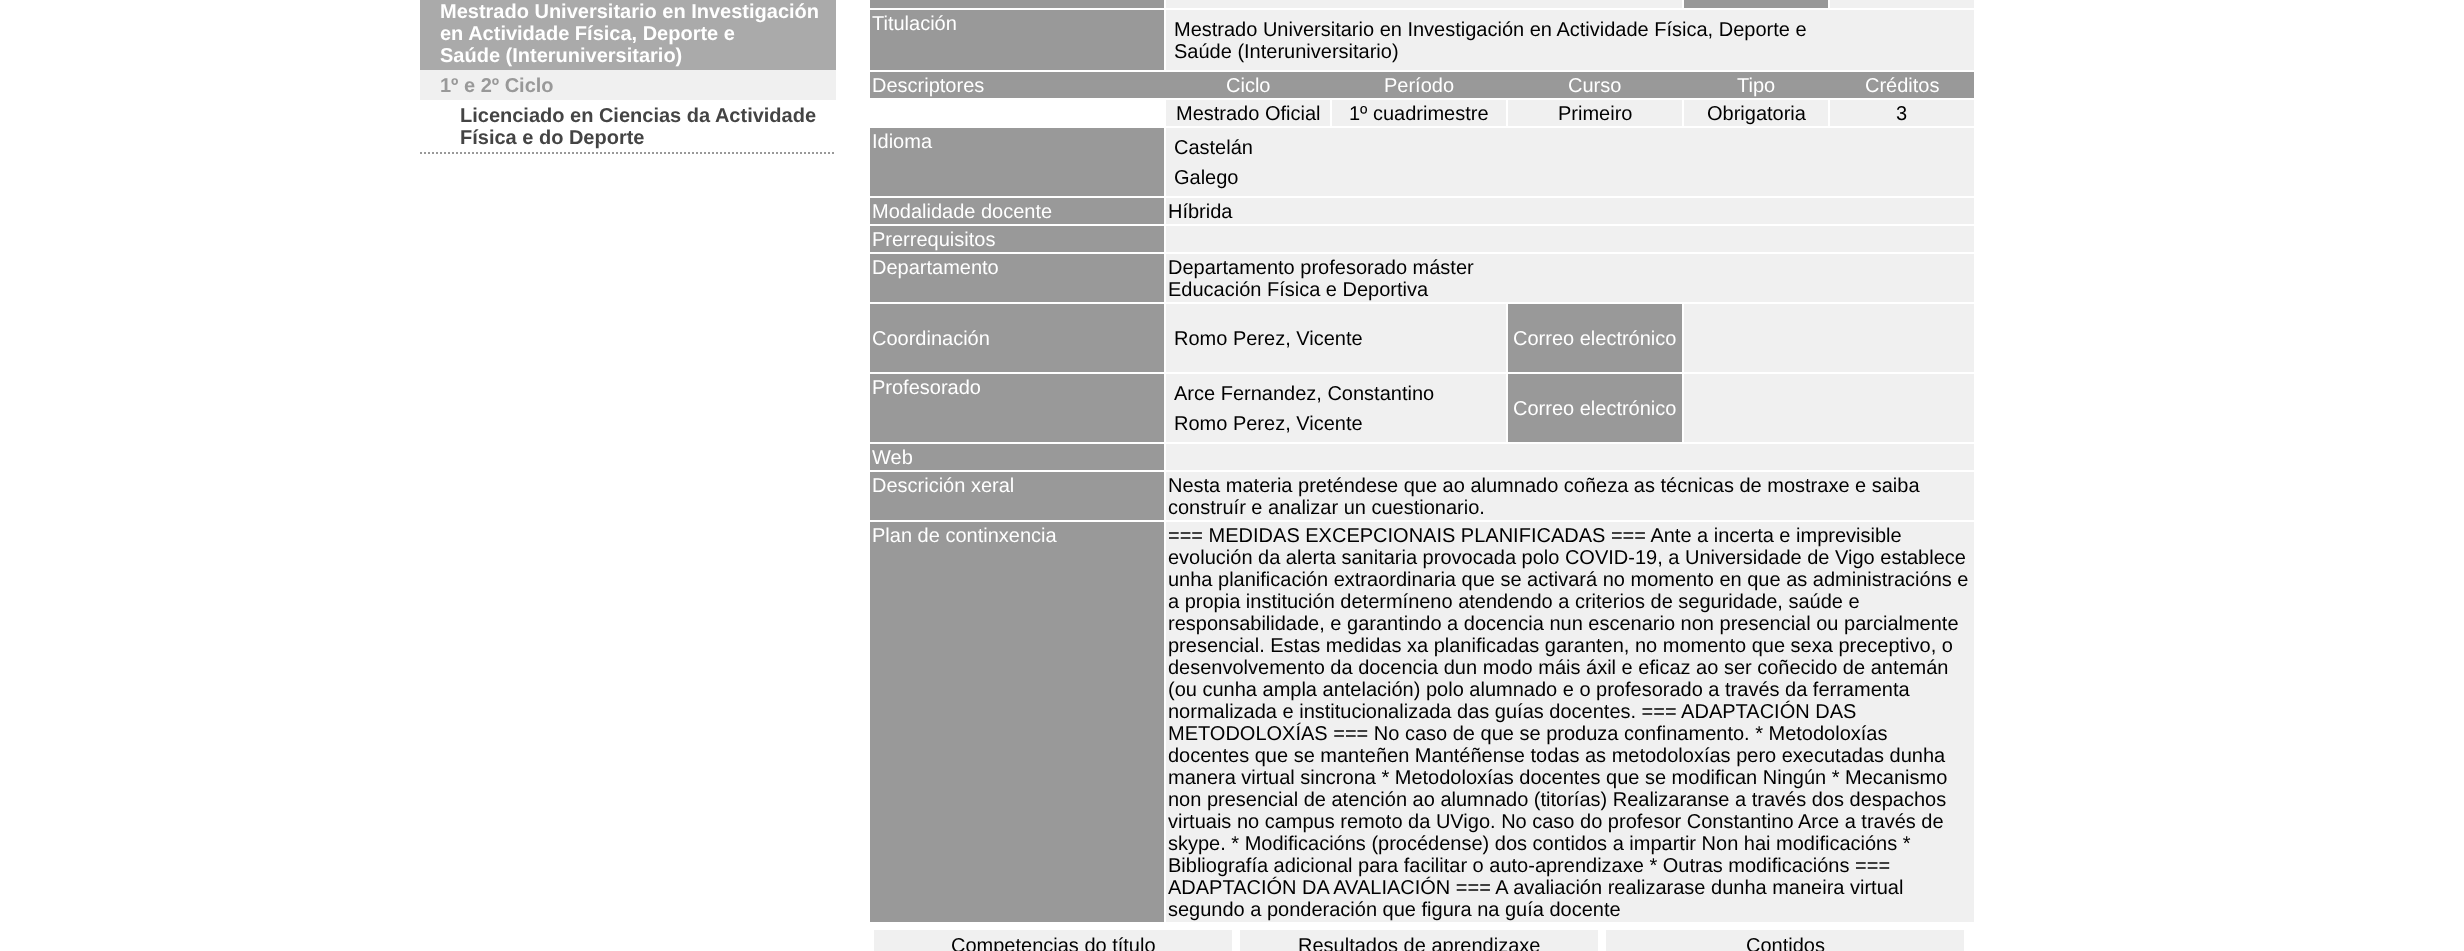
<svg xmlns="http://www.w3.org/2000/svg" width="2464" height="951">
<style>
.a{font:bold 20px Liberation Sans;fill:#fff}
.b{font:bold 20px Liberation Sans;fill:#999}
.c{font:bold 20px Liberation Sans;fill:#444}
.d{font:20px Liberation Sans;fill:#fff}
.e{font:20px Liberation Sans;fill:#000}
</style>
<rect width="100%" height="100%" fill="#fff"/>
<path fill="#f0f0f0" d="M420 70h416v30H420z"/>
<path fill="#aaa" d="M420 0h416v70H420z"/>
<path fill="none" stroke="#999" stroke-width="2" stroke-dasharray="2 2" d="M420 153h416"/>
<path fill="#999" d="M870 0h294v8H870z"/>
<path fill="#f0f0f0" d="M1166 0h516v8H1166z"/>
<path fill="#999" d="M1684 0h144v8H1684z"/>
<path fill="#f0f0f0" d="M1830 0h144v8H1830z"/>
<path fill="#999" d="M870 10h294v60H870z"/>
<path fill="#f0f0f0" d="M1166 10h808v60H1166z"/>
<path fill="#999" d="M870 72h1104v26H870z"/>
<path fill="#f0f0f0" d="M1166 100h164v26H1166z"/>
<path fill="#f0f0f0" d="M1332 100h174v26H1332z"/>
<path fill="#f0f0f0" d="M1508 100h174v26H1508z"/>
<path fill="#f0f0f0" d="M1684 100h144v26H1684z"/>
<path fill="#f0f0f0" d="M1830 100h144v26H1830z"/>
<path fill="#999" d="M870 128h294v68H870z"/>
<path fill="#f0f0f0" d="M1166 128h808v68H1166z"/>
<path fill="#999" d="M870 198h294v26H870z"/>
<path fill="#f0f0f0" d="M1166 198h808v26H1166z"/>
<path fill="#999" d="M870 226h294v26H870z"/>
<path fill="#f0f0f0" d="M1166 226h808v26H1166z"/>
<path fill="#999" d="M870 254h294v48H870z"/>
<path fill="#f0f0f0" d="M1166 254h808v48H1166z"/>
<path fill="#999" d="M870 304h294v68H870z"/>
<path fill="#f0f0f0" d="M1166 304h340v68H1166z"/>
<path fill="#999" d="M1508 304h174v68H1508z"/>
<path fill="#f0f0f0" d="M1684 304h290v68H1684z"/>
<path fill="#999" d="M870 374h294v68H870z"/>
<path fill="#f0f0f0" d="M1166 374h340v68H1166z"/>
<path fill="#999" d="M1508 374h174v68H1508z"/>
<path fill="#f0f0f0" d="M1684 374h290v68H1684z"/>
<path fill="#999" d="M870 444h294v26H870z"/>
<path fill="#f0f0f0" d="M1166 444h808v26H1166z"/>
<path fill="#999" d="M870 472h294v48H870z"/>
<path fill="#f0f0f0" d="M1166 472h808v48H1166z"/>
<path fill="#999" d="M870 522h294v400H870z"/>
<path fill="#f0f0f0" d="M1166 522h808v400H1166z"/>
<path fill="#f0f0f0" d="M874 930h358v21H874z"/>
<path fill="#f0f0f0" d="M1240 930h358v21H1240z"/>
<path fill="#f0f0f0" d="M1606 930h358v21H1606z"/>
<text class="a" x="440" y="18">Mestrado Universitario en Investigación</text>
<text class="a" x="440" y="40">en Actividade Física, Deporte e</text>
<text class="a" x="440" y="62">Saúde (Interuniversitario)</text>
<text class="b" x="440" y="92">1º e 2º Ciclo</text>
<text class="c" x="460" y="122">Licenciado en Ciencias da Actividade</text>
<text class="c" x="460" y="144">Física e do Deporte</text>
<text class="d" x="872" y="30">Titulación</text>
<text class="e" x="1174" y="36">Mestrado Universitario en Investigación en Actividade Física, Deporte e</text>
<text class="e" x="1174" y="58">Saúde (Interuniversitario)</text>
<text class="d" x="872" y="92">Descriptores</text>
<text class="d" x="1226" y="92">Ciclo</text>
<text class="d" x="1384" y="92">Período</text>
<text class="d" x="1568" y="92">Curso</text>
<text class="d" x="1737" y="92">Tipo</text>
<text class="d" x="1865" y="92">Créditos</text>
<text class="e" x="1176" y="120">Mestrado Oficial</text>
<text class="e" x="1349" y="120">1º cuadrimestre</text>
<text class="e" x="1558" y="120">Primeiro</text>
<text class="e" x="1707" y="120">Obrigatoria</text>
<text class="e" x="1896" y="120">3</text>
<text class="d" x="872" y="148">Idioma</text>
<text class="e" x="1174" y="154">Castelán</text>
<text class="e" x="1174" y="184">Galego</text>
<text class="d" x="872" y="218">Modalidade docente</text>
<text class="e" x="1168" y="218">Híbrida</text>
<text class="d" x="872" y="246">Prerrequisitos</text>
<text class="d" x="872" y="274">Departamento</text>
<text class="e" x="1168" y="274">Departamento profesorado máster</text>
<text class="e" x="1168" y="296">Educación Física e Deportiva</text>
<text class="d" x="872" y="345">Coordinación</text>
<text class="e" x="1174" y="345">Romo Perez, Vicente</text>
<text class="d" x="1513" y="345">Correo electrónico</text>
<text class="d" x="872" y="394">Profesorado</text>
<text class="e" x="1174" y="400">Arce Fernandez, Constantino</text>
<text class="e" x="1174" y="430">Romo Perez, Vicente</text>
<text class="d" x="1513" y="415">Correo electrónico</text>
<text class="d" x="872" y="464">Web</text>
<text class="d" x="872" y="492">Descrición xeral</text>
<text class="e" x="1168" y="492">Nesta materia preténdese que ao alumnado coñeza as técnicas de mostraxe e saiba</text>
<text class="e" x="1168" y="514">construír e analizar un cuestionario.</text>
<text class="d" x="872" y="542">Plan de continxencia</text>
<text class="e" x="1168" y="542">=== MEDIDAS EXCEPCIONAIS PLANIFICADAS === Ante a incerta e imprevisible</text>
<text class="e" x="1168" y="564">evolución da alerta sanitaria provocada polo COVID-19, a Universidade de Vigo establece</text>
<text class="e" x="1168" y="586">unha planificación extraordinaria que se activará no momento en que as administracións e</text>
<text class="e" x="1168" y="608">a propia institución determíneno atendendo a criterios de seguridade, saúde e</text>
<text class="e" x="1168" y="630">responsabilidade, e garantindo a docencia nun escenario non presencial ou parcialmente</text>
<text class="e" x="1168" y="652">presencial. Estas medidas xa planificadas garanten, no momento que sexa preceptivo, o</text>
<text class="e" x="1168" y="674">desenvolvemento da docencia dun modo máis áxil e eficaz ao ser coñecido de antemán</text>
<text class="e" x="1168" y="696">(ou cunha ampla antelación) polo alumnado e o profesorado a través da ferramenta</text>
<text class="e" x="1168" y="718">normalizada e institucionalizada das guías docentes. === ADAPTACIÓN DAS</text>
<text class="e" x="1168" y="740">METODOLOXÍAS === No caso de que se produza confinamento. * Metodoloxías</text>
<text class="e" x="1168" y="762">docentes que se manteñen Mantéñense todas as metodoloxías pero executadas dunha</text>
<text class="e" x="1168" y="784">manera virtual sincrona * Metodoloxías docentes que se modifican Ningún * Mecanismo</text>
<text class="e" x="1168" y="806">non presencial de atención ao alumnado (titorías) Realizaranse a través dos despachos</text>
<text class="e" x="1168" y="828">virtuais no campus remoto da UVigo. No caso do profesor Constantino Arce a través de</text>
<text class="e" x="1168" y="850">skype. * Modificacións (procédense) dos contidos a impartir Non hai modificacións *</text>
<text class="e" x="1168" y="872">Bibliografía adicional para facilitar o auto-aprendizaxe * Outras modificacións ===</text>
<text class="e" x="1168" y="894">ADAPTACIÓN DA AVALIACIÓN === A avaliación realizarase dunha maneira virtual</text>
<text class="e" x="1168" y="916">segundo a ponderación que figura na guía docente</text>
<text class="e" x="951" y="952">Competencias do título</text>
<text class="e" x="1298" y="952">Resultados de aprendizaxe</text>
<text class="e" x="1746" y="952">Contidos</text>
</svg>
